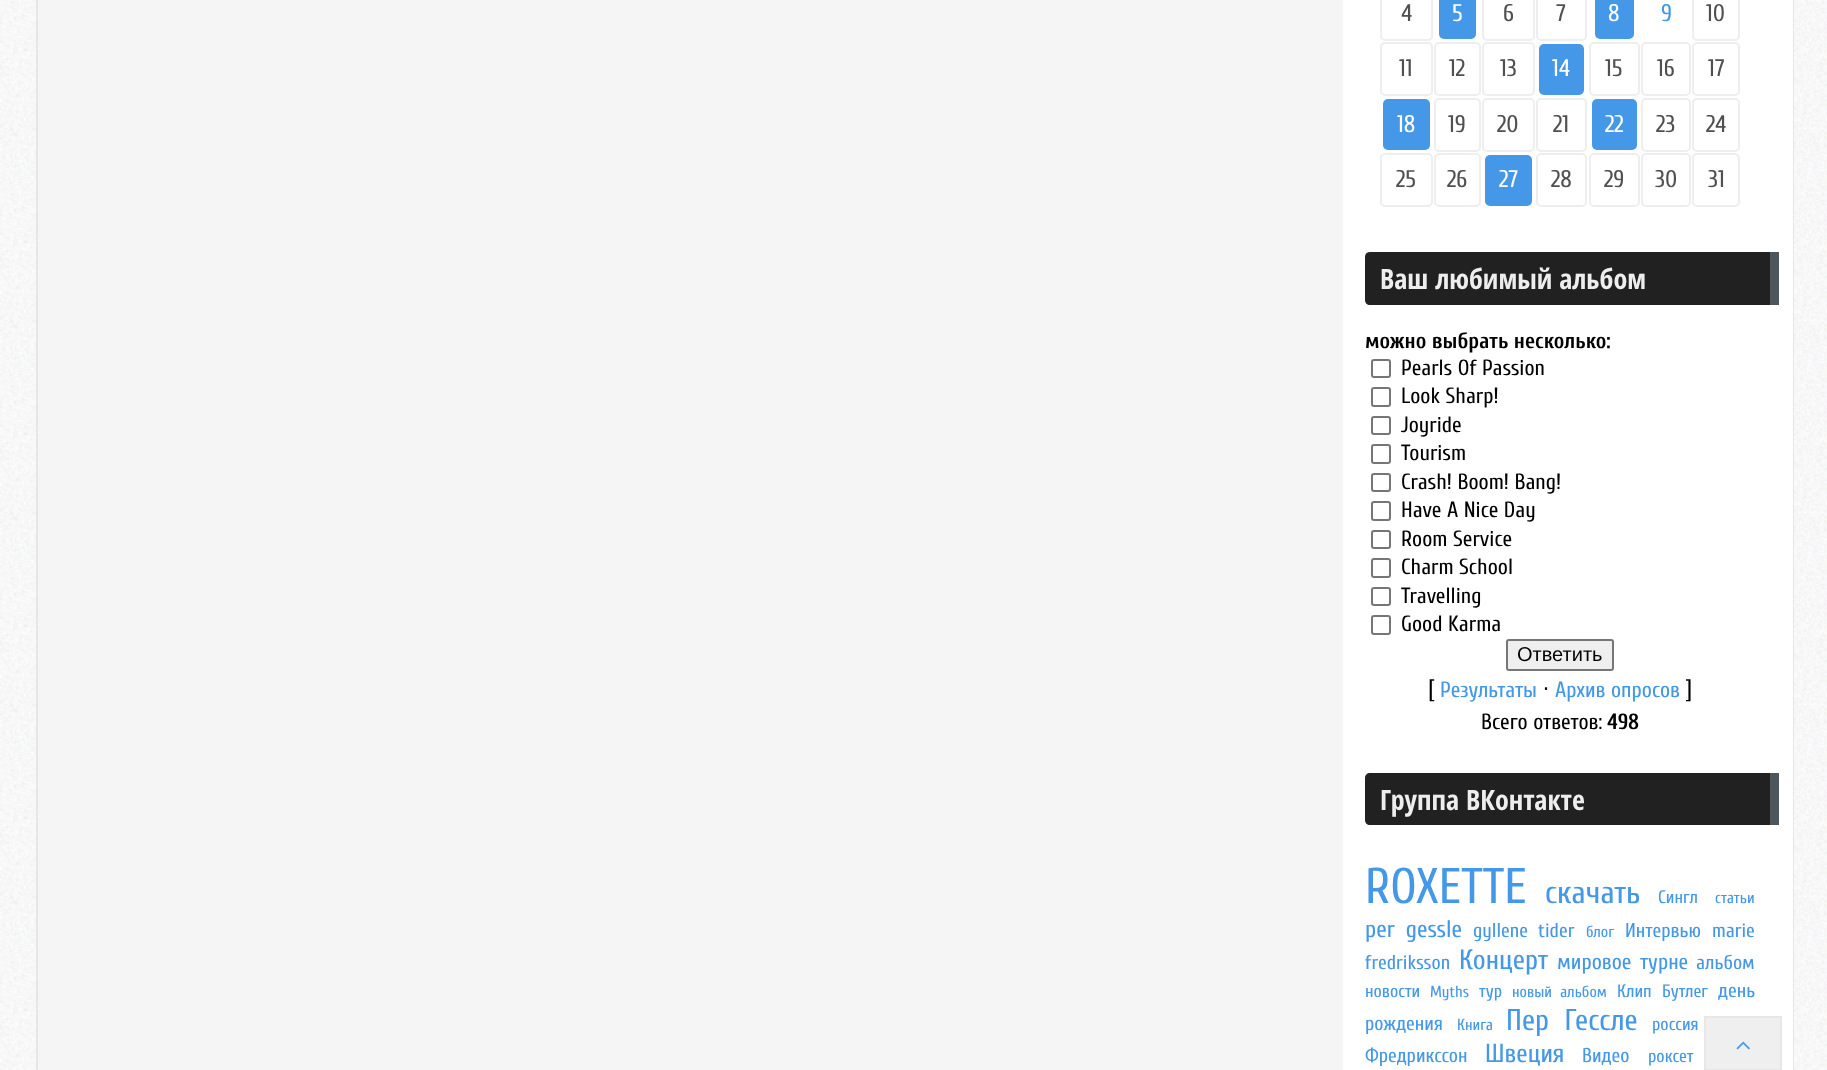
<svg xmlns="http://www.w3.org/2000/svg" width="1827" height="1070">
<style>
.a{font:24px Cuprum;fill:#505050}
.b{font:24px Cuprum;fill:#fff}
.c{font:24px Cuprum;fill:#4498e7}
.d{font:bold 28px Open Sans Condensed;fill:#eee}
.e{font:bold 22px Cuprum;fill:#000}
.f{font:22px Cuprum;fill:#000}
.g{font:20px Liberation Sans;fill:#000}
.h{font:24px Cuprum;fill:#000}
.i{font:22px Cuprum;fill:#4498e7}
.j{font:50px Cuprum;fill:#4498e7}
.k{font:32px Cuprum;fill:#4498e7}
.l{font:18px Cuprum;fill:#4498e7}
.m{font:16px Cuprum;fill:#4498e7}
.n{font:20px Cuprum;fill:#4498e7}
.o{font:28px Cuprum;fill:#4498e7}
.p{font:30px Cuprum;fill:#4498e7}
.q{font:26px Cuprum;fill:#4498e7}
</style>
<rect width="100%" height="100%" fill="#fff"/>
<image href="1.png" x="0" y="0" width="1827" height="1070"/>
<path fill="#f5f5f5" d="M38 0h1305v1070H38z"/>
<path fill="none" stroke="#e6e6e6" stroke-width="2" d="M37 -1h1756v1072H37z"/>
<path fill="#fff" d="M1343 0h450v1070H1343z"/>
<rect fill="none" stroke="#eee" stroke-width="2" x="1381" y="-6" width="51" height="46" rx="4"/>
<rect fill="#4498e7" x="1439" y="-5" width="37" height="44" rx="5"/>
<rect fill="none" stroke="#eee" stroke-width="2" x="1483" y="-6" width="51" height="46" rx="4"/>
<rect fill="none" stroke="#eee" stroke-width="2" x="1537" y="-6" width="49" height="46" rx="4"/>
<rect fill="#4498e7" x="1595" y="-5" width="39" height="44" rx="5"/>
<rect fill="none" stroke="#eee" stroke-width="2" x="1693" y="-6" width="46" height="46" rx="4"/>
<rect fill="none" stroke="#eee" stroke-width="2" x="1381" y="43" width="51" height="52" rx="4"/>
<rect fill="none" stroke="#eee" stroke-width="2" x="1435" y="43" width="45" height="52" rx="4"/>
<rect fill="none" stroke="#eee" stroke-width="2" x="1483" y="43" width="51" height="52" rx="4"/>
<rect fill="#4498e7" x="1539" y="44" width="45" height="51" rx="5"/>
<rect fill="none" stroke="#eee" stroke-width="2" x="1590" y="43" width="49" height="52" rx="4"/>
<rect fill="none" stroke="#eee" stroke-width="2" x="1642" y="43" width="48" height="52" rx="4"/>
<rect fill="none" stroke="#eee" stroke-width="2" x="1693" y="43" width="46" height="52" rx="4"/>
<rect fill="#4498e7" x="1383" y="99" width="47" height="51" rx="5"/>
<rect fill="none" stroke="#eee" stroke-width="2" x="1435" y="99" width="45" height="52" rx="4"/>
<rect fill="none" stroke="#eee" stroke-width="2" x="1483" y="99" width="51" height="52" rx="4"/>
<rect fill="none" stroke="#eee" stroke-width="2" x="1537" y="99" width="49" height="52" rx="4"/>
<rect fill="#4498e7" x="1592" y="99" width="45" height="51" rx="5"/>
<rect fill="none" stroke="#eee" stroke-width="2" x="1642" y="99" width="48" height="52" rx="4"/>
<rect fill="none" stroke="#eee" stroke-width="2" x="1693" y="99" width="46" height="52" rx="4"/>
<rect fill="none" stroke="#eee" stroke-width="2" x="1381" y="154" width="51" height="52" rx="4"/>
<rect fill="none" stroke="#eee" stroke-width="2" x="1435" y="154" width="45" height="52" rx="4"/>
<rect fill="#4498e7" x="1485" y="155" width="47" height="51" rx="5"/>
<rect fill="none" stroke="#eee" stroke-width="2" x="1537" y="154" width="49" height="52" rx="4"/>
<rect fill="none" stroke="#eee" stroke-width="2" x="1590" y="154" width="49" height="52" rx="4"/>
<rect fill="none" stroke="#eee" stroke-width="2" x="1642" y="154" width="48" height="52" rx="4"/>
<rect fill="none" stroke="#eee" stroke-width="2" x="1693" y="154" width="46" height="52" rx="4"/>
<path fill="#212121" d="M1370 252h409v53h-409c-3 0-5-2-5-5v-43c0-3 2-5 5-5z"/>
<path fill="#4c565c" d="M1770 252h9v53H1770z"/>
<rect fill="none" stroke="#767676" stroke-width="2" x="1372" y="360" width="18" height="17" rx="2"/>
<rect fill="none" stroke="#767676" stroke-width="2" x="1372" y="388" width="18" height="18" rx="2"/>
<rect fill="none" stroke="#767676" stroke-width="2" x="1372" y="417" width="18" height="17" rx="2"/>
<rect fill="none" stroke="#767676" stroke-width="2" x="1372" y="445" width="18" height="18" rx="2"/>
<rect fill="none" stroke="#767676" stroke-width="2" x="1372" y="474" width="18" height="17" rx="2"/>
<rect fill="none" stroke="#767676" stroke-width="2" x="1372" y="502" width="18" height="18" rx="2"/>
<rect fill="none" stroke="#767676" stroke-width="2" x="1372" y="531" width="18" height="17" rx="2"/>
<rect fill="none" stroke="#767676" stroke-width="2" x="1372" y="559" width="18" height="18" rx="2"/>
<rect fill="none" stroke="#767676" stroke-width="2" x="1372" y="588" width="18" height="17" rx="2"/>
<rect fill="none" stroke="#767676" stroke-width="2" x="1372" y="616" width="18" height="18" rx="2"/>
<rect fill="#efefef" stroke="#767676" stroke-width="2" x="1507" y="640" width="106" height="30" rx="2"/>
<path fill="#212121" d="M1370 773h409v52h-409c-3 0-5-2-5-5v-42c0-3 2-5 5-5z"/>
<path fill="#4c565c" d="M1770 773h9v52H1770z"/>
<path fill="#eeeeeef5" d="M1704 1016h78v54H1704z"/>
<path fill="none" stroke="#e6e6e6f5" stroke-width="2" d="M1705 1017h76v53H1705z"/>
<image href="2.png" x="1736" y="1041" width="14" height="9"/>
<text class="a" x="1401" y="21">4</text>
<text class="b" x="1452" y="21">5</text>
<text class="a" x="1503" y="21">6</text>
<text class="a" x="1556" y="21">7</text>
<text class="b" x="1608" y="21">8</text>
<text class="c" x="1661" y="21">9</text>
<text class="a" x="1706" y="21">10</text>
<text class="a" x="1399" y="76">11</text>
<text class="a" x="1449" y="76">12</text>
<text class="a" x="1500" y="76">13</text>
<text class="b" x="1552" y="76">14</text>
<text class="a" x="1605" y="76">15</text>
<text class="a" x="1657" y="76">16</text>
<text class="a" x="1708" y="76">17</text>
<text class="b" x="1397" y="132">18</text>
<text class="a" x="1448" y="132">19</text>
<text class="a" x="1497" y="132">20</text>
<text class="a" x="1553" y="132">21</text>
<text class="b" x="1605" y="132">22</text>
<text class="a" x="1656" y="132">23</text>
<text class="a" x="1706" y="132">24</text>
<text class="a" x="1396" y="187">25</text>
<text class="a" x="1447" y="187">26</text>
<text class="b" x="1499" y="187">27</text>
<text class="a" x="1551" y="187">28</text>
<text class="a" x="1604" y="187">29</text>
<text class="a" x="1655" y="187">30</text>
<text class="a" x="1708" y="187">31</text>
<text class="d" x="1380" y="289">Ваш любимый альбом</text>
<text class="e" x="1365" y="348">можно выбрать несколько:</text>
<text class="f" x="1401" y="375">Pearls Of Passion</text>
<text class="f" x="1401" y="403">Look Sharp!</text>
<text class="f" x="1401" y="432">Joyride</text>
<text class="f" x="1401" y="460">Tourism</text>
<text class="f" x="1401" y="489">Crash! Boom! Bang!</text>
<text class="f" x="1401" y="517">Have A Nice Day</text>
<text class="f" x="1401" y="546">Room Service</text>
<text class="f" x="1401" y="574">Charm School</text>
<text class="f" x="1401" y="603">Travelling</text>
<text class="f" x="1401" y="631">Good Karma</text>
<text class="g" x="1517" y="661">Ответить</text>
<text class="h" x="1428" y="697">[</text>
<text class="i" x="1440" y="697">Результаты</text>
<text class="h" x="1543" y="697">·</text>
<text class="i" x="1555" y="697">Архив опросов</text>
<text class="h" x="1686" y="697">]</text>
<text class="f" x="1481" y="729">Всего ответов:</text>
<text class="e" x="1607" y="729">498</text>
<text class="d" x="1380" y="810">Группа ВКонтакте</text>
<text class="j" x="1365" y="903">ROXETTE</text>
<text class="k" x="1545" y="903">скачать</text>
<text class="l" x="1658" y="903">Сингл</text>
<text class="m" x="1715" y="903">статьи</text>
<text class="c" x="1365" y="937" word-spacing="5">per gessle</text>
<text class="n" x="1473" y="937" word-spacing="5">gyllene tider</text>
<text class="m" x="1586" y="937">блог</text>
<text class="n" x="1625" y="937">Интервью</text>
<text class="n" x="1712" y="937">marie</text>
<text class="n" x="1365" y="969">fredriksson</text>
<text class="o" x="1459" y="969">Концерт</text>
<text class="i" x="1557" y="969" word-spacing="3">мировое турне</text>
<text class="n" x="1696" y="969">альбом</text>
<text class="l" x="1365" y="997">новости</text>
<text class="m" x="1430" y="997">Myths</text>
<text class="l" x="1479" y="997">тур</text>
<text class="m" x="1512" y="997" word-spacing="4">новый альбом</text>
<text class="l" x="1617" y="997">Клип</text>
<text class="l" x="1662" y="997">Бутлег</text>
<text class="n" x="1718" y="997">день</text>
<text class="n" x="1365" y="1030">рождения</text>
<text class="m" x="1457" y="1030">Книга</text>
<text class="p" x="1506" y="1030" word-spacing="8">Пер Гессле</text>
<text class="l" x="1652" y="1030">россия</text>
<text class="n" x="1365" y="1062">Фредрикссон</text>
<text class="q" x="1485" y="1062">Швеция</text>
<text class="n" x="1582" y="1062">Видео</text>
<text class="l" x="1648" y="1062">роксет</text>
</svg>
